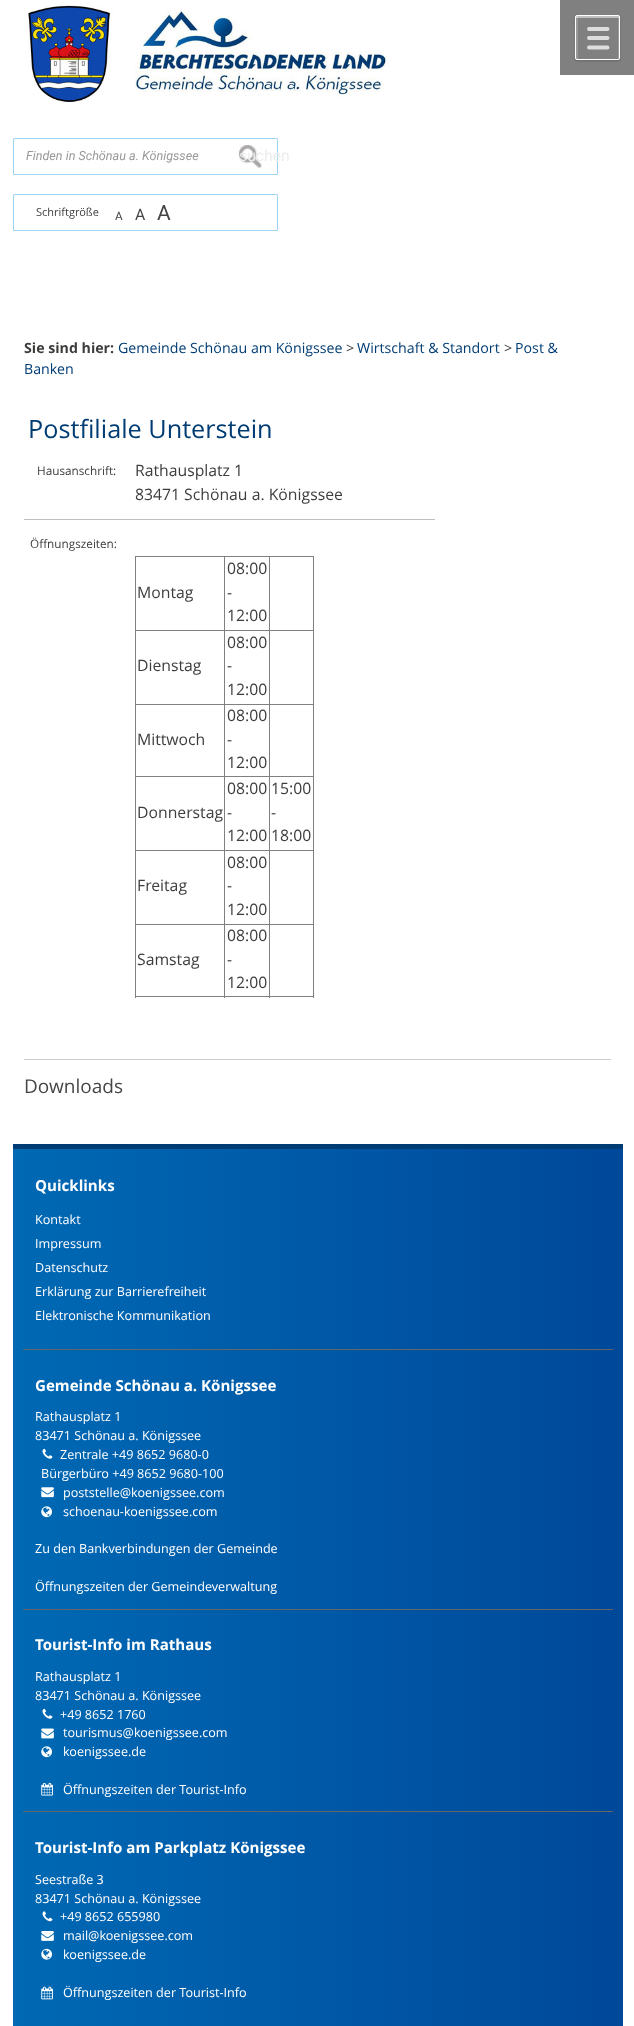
<svg xmlns="http://www.w3.org/2000/svg" width="634" height="2026">
<style>
.a{font:italic 12.6px Roboto;fill:#999}
.b{font:15.75px Roboto;fill:#ededee}
.c{font:11px Open Sans;fill:#3d3d3c}
.d{font:11.75px Roboto;fill:#454545}
.e{font:15.75px Roboto;fill:#454545}
.f{font:21px Roboto;fill:#454545}
.g{font:bold 14.2px Open Sans;fill:#3d3d3c}
.h{font:14.2px Open Sans;fill:#003c74}
.i{font:14.2px Open Sans;fill:#3d3d3c}
.j{font:25.25px Open Sans;fill:#003c74}
.k{font:11.75px Open Sans;fill:#3d3d3c}
.l{font:15.75px Open Sans;fill:#3d3d3c}
.m{font:19px Open Sans;fill:#454545}
.n{font:bold 15.1px Open Sans;fill:#fff}
.o{font:12.6px Open Sans;fill:#fff}
</style>
<defs>
<clipPath id="clip1"><path d="M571 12h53v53h-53zm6 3h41c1 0 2 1 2 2v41c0 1-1 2-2 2h-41c-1 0-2-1-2-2v-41c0-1 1-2 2-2z" clip-rule="evenodd"/></clipPath>
<linearGradient id="g1" gradientUnits="userSpaceOnUse" x1="623" y1="1639" x2="12" y2="1639"><stop offset="0" stop-color="#004899"/><stop offset="1" stop-color="#0069b4"/></linearGradient>
</defs>
<rect width="100%" height="100%" fill="#fff"/>
<image href="1.png" x="28" y="5" width="361" height="98"/>
<path fill="#808080" d="M560 0h74v75H560z"/>
<g clip-path="url(#clip1)">
<rect fill="#00000033" filter="blur(1px)" x="575" y="16" width="45" height="45" rx="2"/>
</g>
<path fill="none" stroke="#ddd" stroke-width="3.9" stroke-linecap="round" d="M589 29h18.5m-18.5 9h18.5m-18.5 9.5h18.5"/>
<path fill="#c0c0c0" d="M577 18h42c0-4-1-2-7-2h-28c-7 0-8-2-8 2z"/>
<path fill="#ffffff33" d="M618 59c3 0 1-4 1-7v-28c0-4 2-8-1-8zm-42-43v36c0 6-2 7 2 7v-43z"/>
<rect fill="none" stroke="#fff" x="575.5" y="15.5" width="44" height="44" rx="1.5"/>
<rect fill="none" stroke="#9dd4f4" x="13.5" y="138.5" width="264" height="36" rx="0.5"/>
<image href="2.png" x="238" y="145" width="24" height="23"/>
<rect fill="none" stroke="#9dd4f4" x="13.5" y="194.5" width="264" height="36" rx="0.5"/>
<path fill="#bfbfbf" d="M24 519h411v1H24z"/>
<path fill="#808080" d="M135 556h179v1H135z"/>
<path fill="#808080" d="M313 556h1v442H313z"/>
<path fill="#808080" d="M135 996h179v1H135z"/>
<path fill="#808080" d="M135 556h1v442H135z"/>
<path fill="#808080" d="M269 630h45v1H269z"/>
<path fill="#808080" d="M269 704h45v1H269z"/>
<path fill="#808080" d="M269 776h45v1H269z"/>
<path fill="#808080" d="M269 850h45v1H269z"/>
<path fill="#808080" d="M269 924h45v1H269z"/>
<path fill="#808080" d="M269 924h1v74H269z"/>
<path fill="#808080" d="M224 924h46v1H224z"/>
<path fill="#808080" d="M269 850h1v75H269z"/>
<path fill="#808080" d="M224 850h46v1H224z"/>
<path fill="#808080" d="M269 776h1v75H269z"/>
<path fill="#808080" d="M224 776h46v1H224z"/>
<path fill="#808080" d="M269 704h1v74H269z"/>
<path fill="#808080" d="M224 704h46v1H224z"/>
<path fill="#808080" d="M269 630h1v75H269z"/>
<path fill="#808080" d="M224 630h46v1H224z"/>
<path fill="#808080" d="M224 924h1v74H224z"/>
<path fill="#808080" d="M135 924h90v1H135z"/>
<path fill="#808080" d="M224 850h1v75H224z"/>
<path fill="#808080" d="M135 850h90v1H135z"/>
<path fill="#808080" d="M224 776h1v75H224z"/>
<path fill="#808080" d="M135 776h90v1H135z"/>
<path fill="#808080" d="M224 704h1v74H224z"/>
<path fill="#808080" d="M135 704h90v1H135z"/>
<path fill="#808080" d="M224 630h1v75H224z"/>
<path fill="#808080" d="M135 630h90v1H135z"/>
<path fill="#808080" d="M224 556h1v75H224z"/>
<path fill="#808080" d="M269 556h1v75H269z"/>
<path fill="#ccc" d="M24 1059h587v1H24z"/>
<path fill="url(#g1)" d="M13 1149h610v877H13z"/>
<path fill="#003c74" d="M13 1144h610v5H13z"/>
<path fill="#666" d="M23 1349h590v1H23z"/>
<path fill="#666" d="M23 1609h590v1H23z"/>
<image href="3.png" x="42" y="1448" width="11" height="11"/>
<image href="4.png" x="41" y="1487" width="13" height="11"/>
<image href="5.png" x="41" y="1506" width="11" height="12"/>
<path fill="#666" d="M23 1811h590v1H23z"/>
<image href="3.png" x="42" y="1708" width="11" height="11"/>
<image href="6.png" x="41" y="1728" width="13" height="11"/>
<image href="5.png" x="41" y="1746" width="11" height="12"/>
<image href="7.png" x="41" y="1782" width="12" height="14"/>
<image href="8.png" x="42" y="1911" width="11" height="11"/>
<image href="9.png" x="41" y="1931" width="13" height="10"/>
<image href="10.png" x="41" y="1948" width="11" height="12"/>
<image href="11.png" x="41" y="1986" width="12" height="14"/>
<text class="a" x="26" y="160">Finden in Schönau a. Königssee</text>
<text class="b" x="239" y="161">suchen</text>
<text class="c" x="36" y="216">Schriftgröße</text>
<text class="d" x="115" y="220">A</text>
<text class="e" x="135" y="220">A</text>
<text class="f" x="157" y="220">A</text>
<text class="g" x="24" y="353">Sie sind hier:</text>
<text class="h" x="118" y="353">Gemeinde Schönau am Königssee</text>
<text class="i" x="346" y="353">&gt;</text>
<text class="h" x="357" y="353">Wirtschaft &amp; Standort</text>
<text class="i" x="504" y="353">&gt;</text>
<text class="h" x="515" y="353">Post &amp;</text>
<text class="h" x="24" y="374">Banken</text>
<text class="j" x="28" y="438">Postfiliale Unterstein</text>
<text class="k" x="37" y="475">Hausanschrift:</text>
<text class="l" x="135" y="476">Rathausplatz 1</text>
<text class="l" x="135" y="500">83471 Schönau a. Königssee</text>
<text class="k" x="30" y="548">Öffnungszeiten:</text>
<text class="l" x="137" y="598">Montag</text>
<text class="l" x="227" y="574">08:00</text>
<text class="l" x="227" y="598">-</text>
<text class="l" x="227" y="621">12:00</text>
<text class="l" x="137" y="671">Dienstag</text>
<text class="l" x="227" y="648">08:00</text>
<text class="l" x="227" y="671">-</text>
<text class="l" x="227" y="695">12:00</text>
<text class="l" x="137" y="745">Mittwoch</text>
<text class="l" x="227" y="721">08:00</text>
<text class="l" x="227" y="745">-</text>
<text class="l" x="227" y="768">12:00</text>
<text class="l" x="137" y="818">Donnerstag</text>
<text class="l" x="227" y="794">08:00</text>
<text class="l" x="227" y="818">-</text>
<text class="l" x="227" y="841">12:00</text>
<text class="l" x="271" y="794">15:00</text>
<text class="l" x="271" y="818">-</text>
<text class="l" x="271" y="841">18:00</text>
<text class="l" x="137" y="891">Freitag</text>
<text class="l" x="227" y="868">08:00</text>
<text class="l" x="227" y="891">-</text>
<text class="l" x="227" y="915">12:00</text>
<text class="l" x="137" y="965">Samstag</text>
<text class="l" x="227" y="941">08:00</text>
<text class="l" x="227" y="965">-</text>
<text class="l" x="227" y="988">12:00</text>
<text class="m" x="24" y="1093">Downloads</text>
<text class="n" x="35" y="1191">Quicklinks</text>
<text class="o" x="35" y="1224">Kontakt</text>
<text class="o" x="35" y="1248">Impressum</text>
<text class="o" x="35" y="1272">Datenschutz</text>
<text class="o" x="35" y="1296">Erklärung zur Barrierefreiheit</text>
<text class="o" x="35" y="1320">Elektronische Kommunikation</text>
<text class="n" x="35" y="1391">Gemeinde Schönau a. Königssee</text>
<text class="o" x="35" y="1421">Rathausplatz 1</text>
<text class="o" x="35" y="1440">83471 Schönau a. Königssee</text>
<text class="o" x="60" y="1459">Zentrale +49 8652 9680-0</text>
<text class="o" x="41" y="1478">Bürgerbüro +49 8652 9680-100</text>
<text class="o" x="63" y="1497">poststelle@koenigssee.com</text>
<text class="o" x="63" y="1516">schoenau-koenigssee.com</text>
<text class="o" x="35" y="1553">Zu den Bankverbindungen der Gemeinde</text>
<text class="o" x="35" y="1591">Öffnungszeiten der Gemeindeverwaltung</text>
<text class="n" x="35" y="1650">Tourist-Info im Rathaus</text>
<text class="o" x="35" y="1681">Rathausplatz 1</text>
<text class="o" x="35" y="1700">83471 Schönau a. Königssee</text>
<text class="o" x="60" y="1719">+49 8652 1760</text>
<text class="o" x="63" y="1737">tourismus@koenigssee.com</text>
<text class="o" x="63" y="1756">koenigssee.de</text>
<text class="o" x="63" y="1794">Öffnungszeiten der Tourist-Info</text>
<text class="n" x="35" y="1853">Tourist-Info am Parkplatz Königssee</text>
<text class="o" x="35" y="1884">Seestraße 3</text>
<text class="o" x="35" y="1903">83471 Schönau a. Königssee</text>
<text class="o" x="60" y="1921">+49 8652 655980</text>
<text class="o" x="63" y="1940">mail@koenigssee.com</text>
<text class="o" x="63" y="1959">koenigssee.de</text>
<text class="o" x="63" y="1997">Öffnungszeiten der Tourist-Info</text>
</svg>
